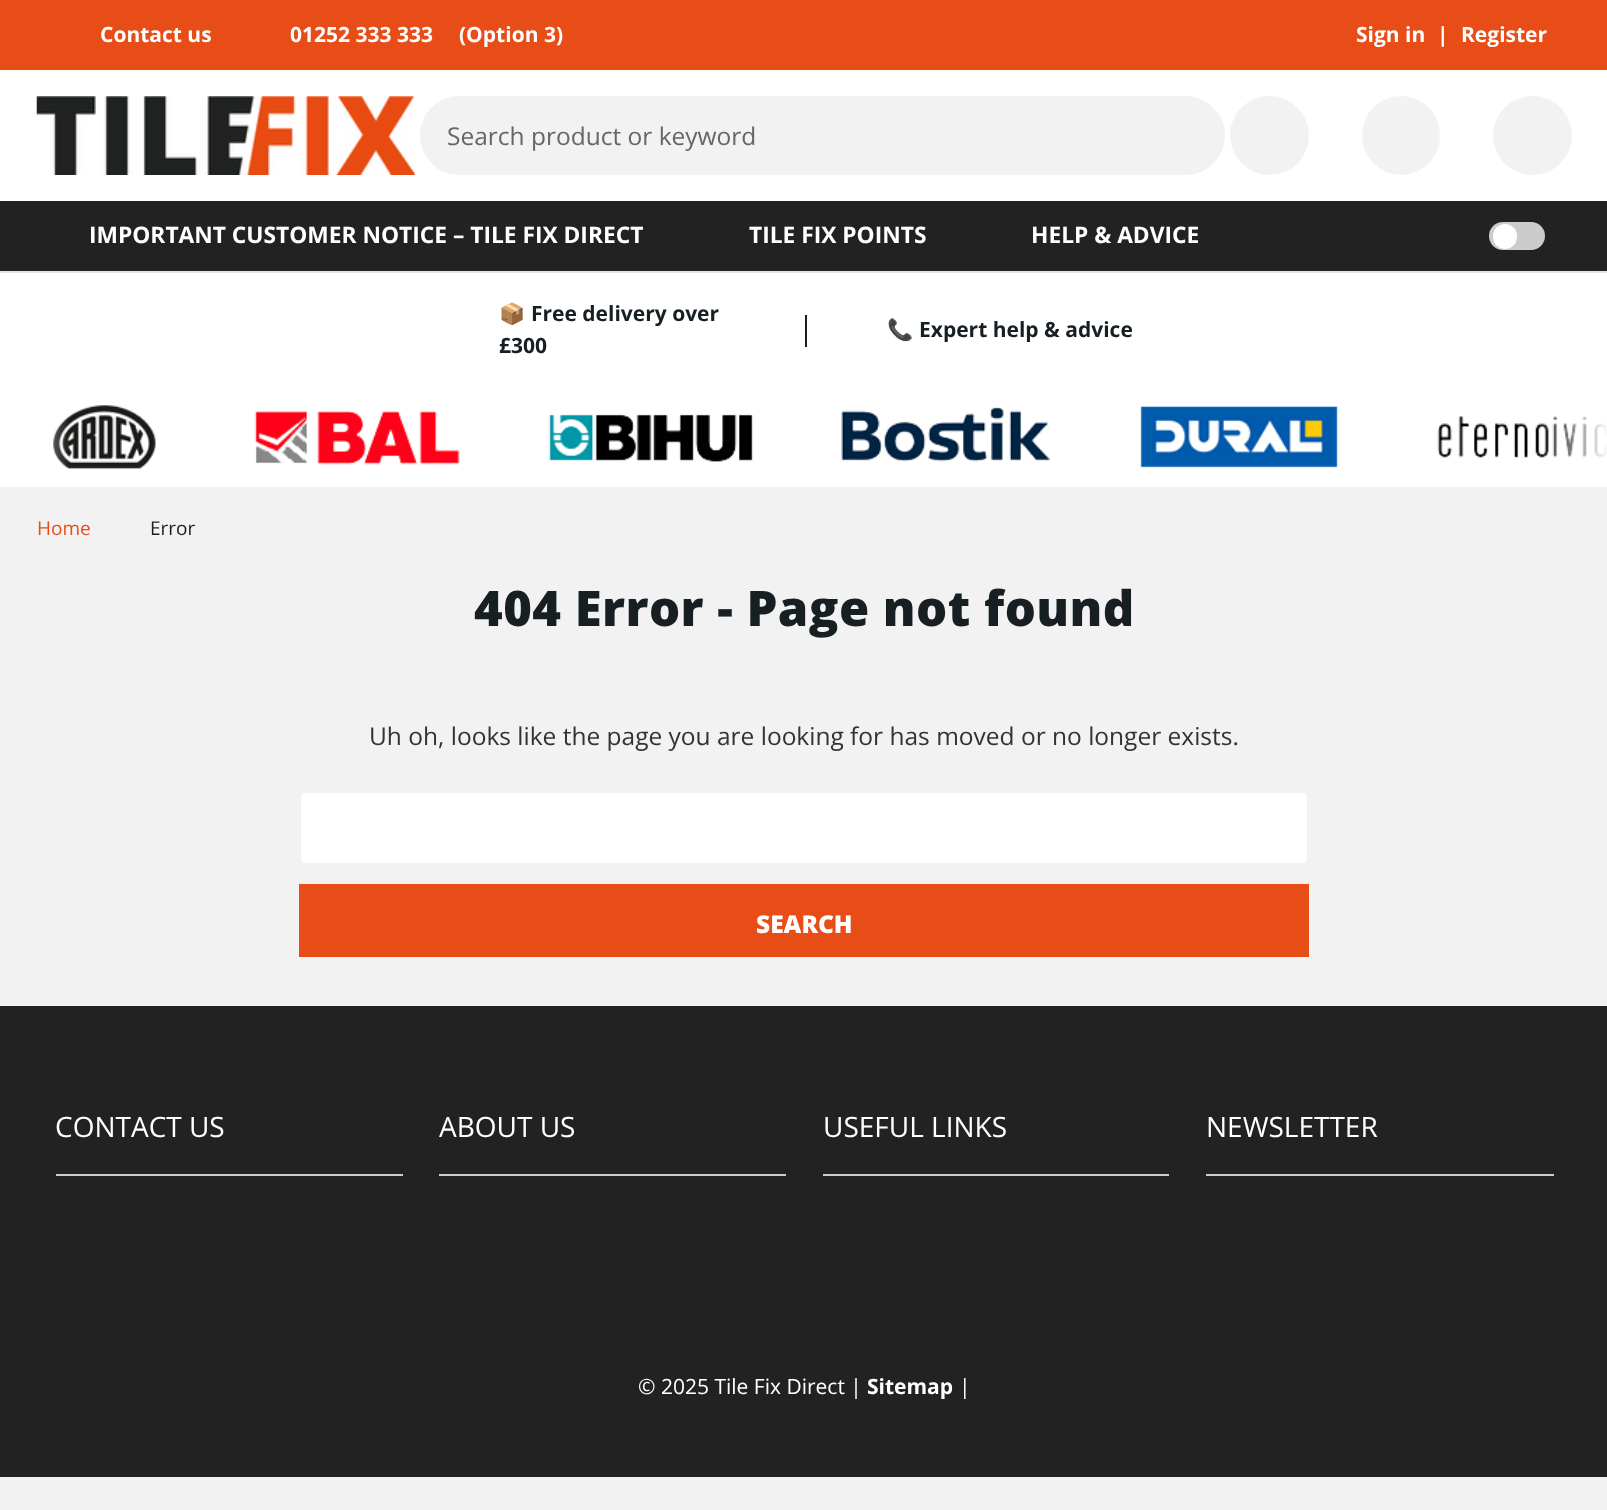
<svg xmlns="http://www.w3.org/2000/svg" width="1607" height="1510">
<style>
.a{font:bold 21px Open Sans;fill:#fff}
.b{font:24.5px Open Sans;fill:#666}
.c{font:bold 22.75px Open Sans;fill:#fff}
.d{font:bold 21px Noto Color Emoji;fill:#171f23}
.e{font:bold 21px Open Sans;fill:#171f23}
.f{font:19px Open Sans;fill:#e84c17}
.g{font:19px Open Sans;fill:#171f23}
.h{font:800 49px Open Sans;letter-spacing:0.45px;fill:#171f23}
.i{font:24.5px Open Sans;fill:#333}
.j{font:800 24.5px Open Sans;fill:#fff}
.k{font:28px Open Sans;fill:#fff}
.l{font:21px Open Sans;fill:#fff}
</style>
<defs>
<linearGradient id="g1" gradientUnits="userSpaceOnUse" x1="0" y1="438" x2="70" y2="438"><stop offset="0" stop-color="#fff"/><stop offset="1" stop-color="#fff" stop-opacity="0"/></linearGradient>
<linearGradient id="g2" gradientUnits="userSpaceOnUse" x1="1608" y1="438" x2="1538" y2="438"><stop offset="0" stop-color="#fff"/><stop offset="1" stop-color="#fff" stop-opacity="0"/></linearGradient>
</defs>
<rect width="100%" height="100%" fill="#f2f2f2"/>
<path fill="#e84c17" d="M0 0h1607v70H0z"/>
<path fill="#fff" d="M0 70h1607v131H0z"/>
<path fill="#e5e5e5" d="M0 271h1607v2H0z"/>
<image href="1.png" x="36" y="96" width="379" height="79"/>
<rect fill="#f2f2f2" stroke="#f2f2f2" stroke-width="2" x="421" y="97" width="803" height="77" rx="38.5"/>
<circle fill="#f2f2f2" cx="1269.5" cy="135.5" r="39.5"/>
<rect fill="#f2f2f2" x="1362" y="96" width="78" height="79" rx="39"/>
<circle fill="#f2f2f2" cx="1532.5" cy="135.5" r="39.5"/>
<path fill="#222" d="M0 201h1607v70H0z"/>
<rect fill="#ccc" x="1489" y="222" width="56" height="28" rx="14"/>
<rect fill="#fff" x="1493" y="224" width="24" height="25" rx="12"/>
<path fill="#fff" d="M0 273h1607v214H0z"/>
<path fill="#171f23" d="M805 315h2v32H805z"/>
<image href="2.png" x="53" y="405" width="103" height="64"/>
<image href="3.png" x="254" y="410" width="206" height="55"/>
<image href="4.png" x="548" y="414" width="208" height="48"/>
<image href="5.png" x="840" y="407" width="210" height="66"/>
<image href="6.png" x="1140" y="406" width="198" height="62"/>
<image href="7.png" x="1437" y="416" width="170" height="42"/>
<path fill="url(#g1)" d="M53 418h15v50H53z"/>
<path fill="url(#g2)" d="M1540 416h67v42H1540z"/>
<rect fill="#fff" stroke="#f2f2f2" stroke-width="2" x="300" y="792" width="1008" height="72" rx="6"/>
<path fill="#e84c17" d="M299 884h1010v73H299z"/>
<path fill="#222" d="M0 1006h1607v471H0z"/>
<path fill="#ccc" d="M56 1174h347v2H56z"/>
<path fill="#ccc" d="M439 1174h347v2H439z"/>
<path fill="#ccc" d="M823 1174h346v2H823z"/>
<path fill="#ccc" d="M1206 1174h348v2H1206z"/>
<text class="a" x="100" y="42">Contact us</text>
<text class="a" x="290" y="42">01252 333 333</text>
<text class="a" x="459" y="42">(Option 3)</text>
<text class="a" x="1356" y="42">Sign in</text>
<text class="a" x="1437" y="42">|</text>
<text class="a" x="1461" y="42">Register</text>
<text class="b" x="447" y="145">Search product or keyword</text>
<text class="c" x="89" y="243">IMPORTANT CUSTOMER NOTICE – TILE FIX DIRECT</text>
<text class="c" x="749" y="243">TILE FIX POINTS</text>
<text class="c" x="1031" y="243">HELP &amp; ADVICE</text>
<text class="d" x="499" y="321">📦</text>
<text class="e" x="531" y="321">Free delivery over</text>
<text class="e" x="499" y="353">£300</text>
<text class="d" x="887" y="337">📞</text>
<text class="e" x="919" y="337">Expert help &amp; advice</text>
<text class="f" x="37" y="535">Home</text>
<text class="g" x="150" y="535">Error</text>
<text class="h" x="474" y="626">404 Error - Page not found</text>
<text class="i" x="369" y="745">Uh oh, looks like the page you are looking for has moved or no longer exists.</text>
<text class="j" x="756" y="933">SEARCH</text>
<text class="k" x="55" y="1137">CONTACT US</text>
<text class="k" x="439" y="1137">ABOUT US</text>
<text class="k" x="823" y="1137">USEFUL LINKS</text>
<text class="k" x="1206" y="1137">NEWSLETTER</text>
<text class="l" x="638" y="1394">© 2025 Tile Fix Direct |</text>
<text class="a" x="867" y="1394">Sitemap</text>
<text class="l" x="959" y="1394">|</text>
</svg>
